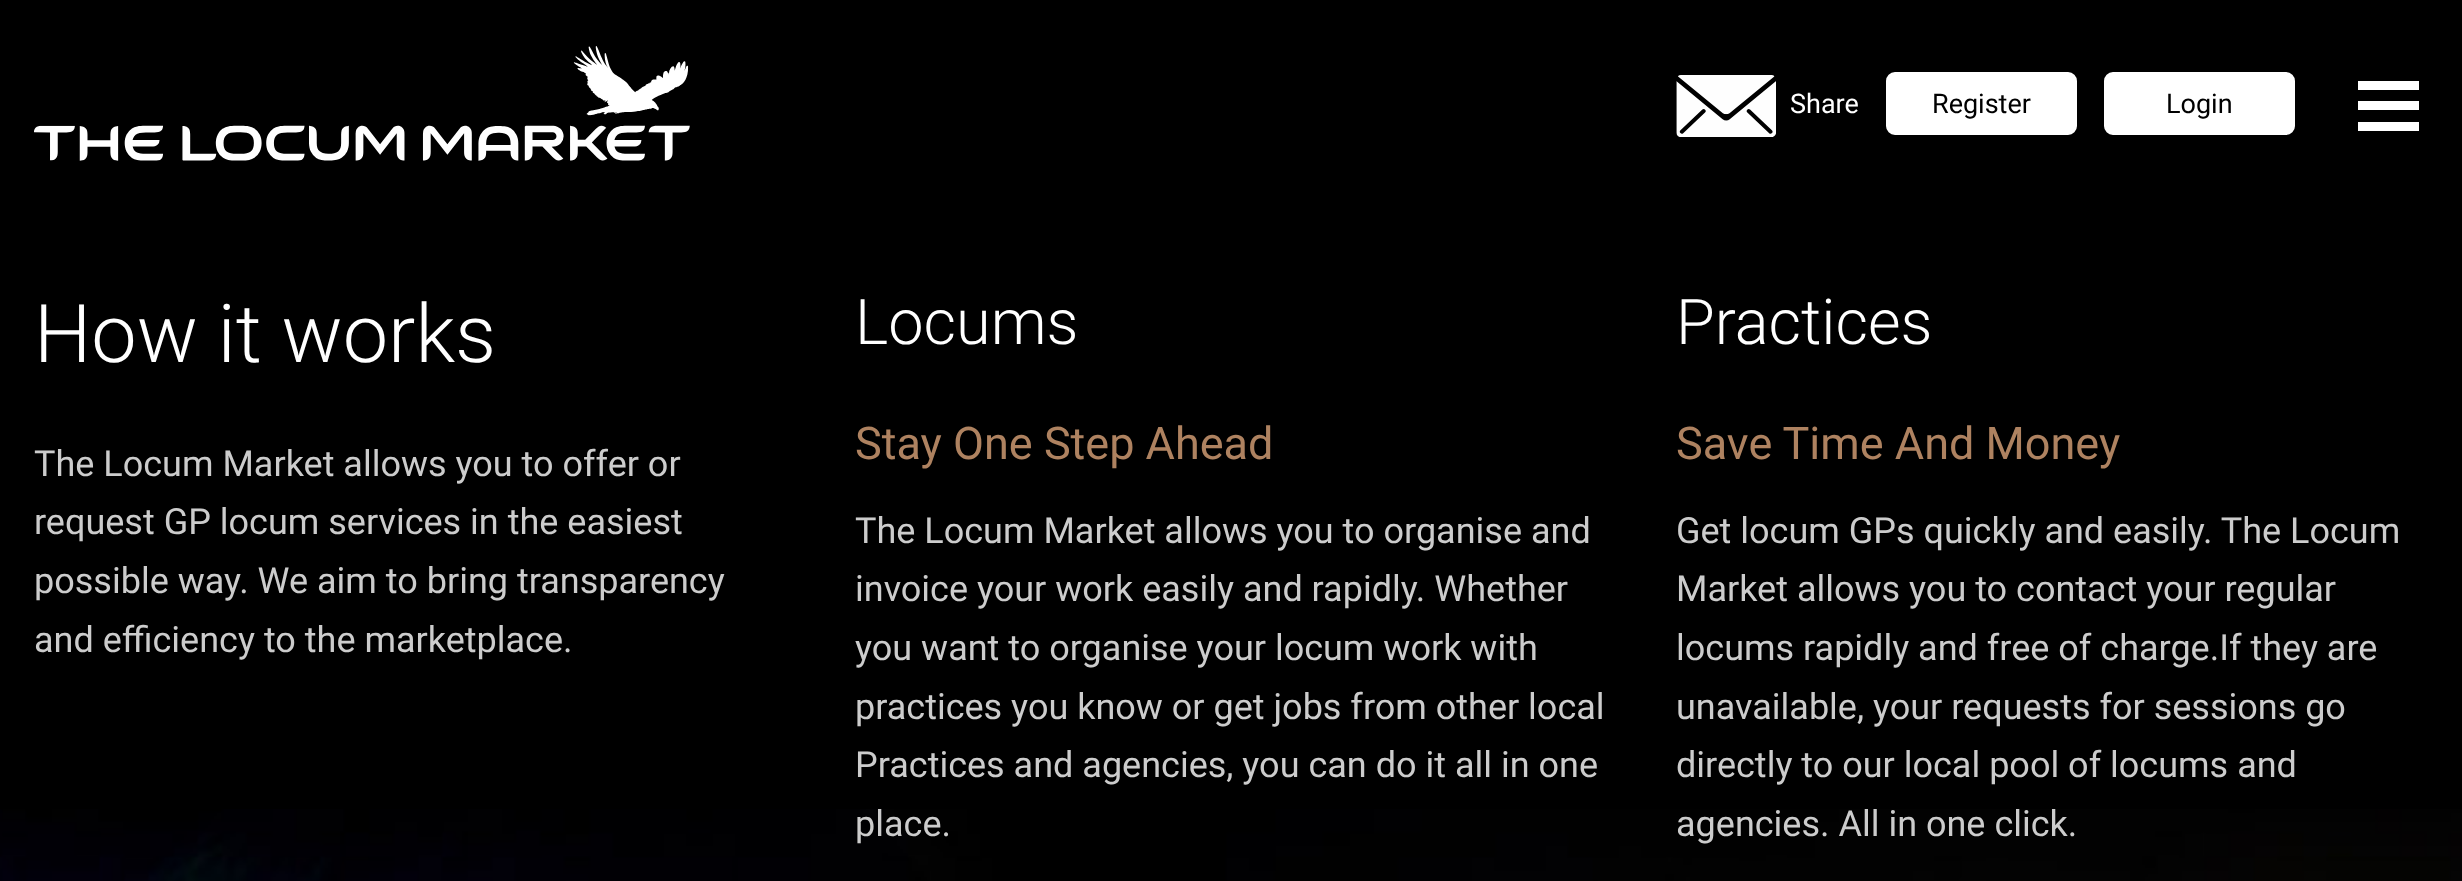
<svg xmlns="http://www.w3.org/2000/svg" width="2462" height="881">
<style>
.a{font:27px Roboto;fill:#fff}
.b{font:27px Roboto;fill:#000}
.c{font:300 81px Roboto;fill:#fff}
.d{font:36px Roboto;fill:#ccc}
.e{font:300 63px Roboto;fill:#fff}
.f{font:45px Roboto;fill:#ae8260}
</style>
<rect width="100%" height="100%" fill="#000"/>
<image href="1.png" x="0" y="809" width="2462" height="72"/>
<image href="2.png" x="34" y="46" width="656" height="115"/>
<image href="3.png" x="1676" y="75" width="100" height="62"/>
<rect fill="#fff" stroke="#fff" stroke-width="2" x="1887" y="73" width="189" height="61" rx="8"/>
<rect fill="#fff" stroke="#fff" stroke-width="2" x="2105" y="73" width="189" height="61" rx="8"/>
<path fill="#fff" d="M2358 101h61v9H2358z"/>
<path fill="#fff" d="M2358 81h61v9H2358z"/>
<path fill="#fff" d="M2358 122h61v9H2358z"/>
<text class="a" x="1790" y="113">Share</text>
<text class="b" x="1932" y="113">Register</text>
<text class="b" x="2166" y="113">Login</text>
<text class="c" x="34" y="362">How it works</text>
<text class="d" x="34" y="476">The Locum Market allows you to offer or</text>
<text class="d" x="34" y="534">request GP locum services in the easiest</text>
<text class="d" x="34" y="593">possible way. We aim to bring transparency</text>
<text class="d" x="34" y="652">and efficiency to the marketplace.</text>
<text class="e" x="855" y="344">Locums</text>
<text class="f" x="855" y="459">Stay One Step Ahead</text>
<text class="d" x="855" y="543">The Locum Market allows you to organise and</text>
<text class="d" x="855" y="601">invoice your work easily and rapidly. Whether</text>
<text class="d" x="855" y="660">you want to organise your locum work with</text>
<text class="d" x="855" y="719">practices you know or get jobs from other local</text>
<text class="d" x="855" y="777">Practices and agencies, you can do it all in one</text>
<text class="d" x="855" y="836">place.</text>
<text class="e" x="1676" y="344">Practices</text>
<text class="f" x="1676" y="459">Save Time And Money</text>
<text class="d" x="1676" y="543">Get locum GPs quickly and easily. The Locum</text>
<text class="d" x="1676" y="601">Market allows you to contact your regular</text>
<text class="d" x="1676" y="660">locums rapidly and free of charge.If they are</text>
<text class="d" x="1676" y="719">unavailable, your requests for sessions go</text>
<text class="d" x="1676" y="777">directly to our local pool of locums and</text>
<text class="d" x="1676" y="836">agencies. All in one click.</text>
</svg>
